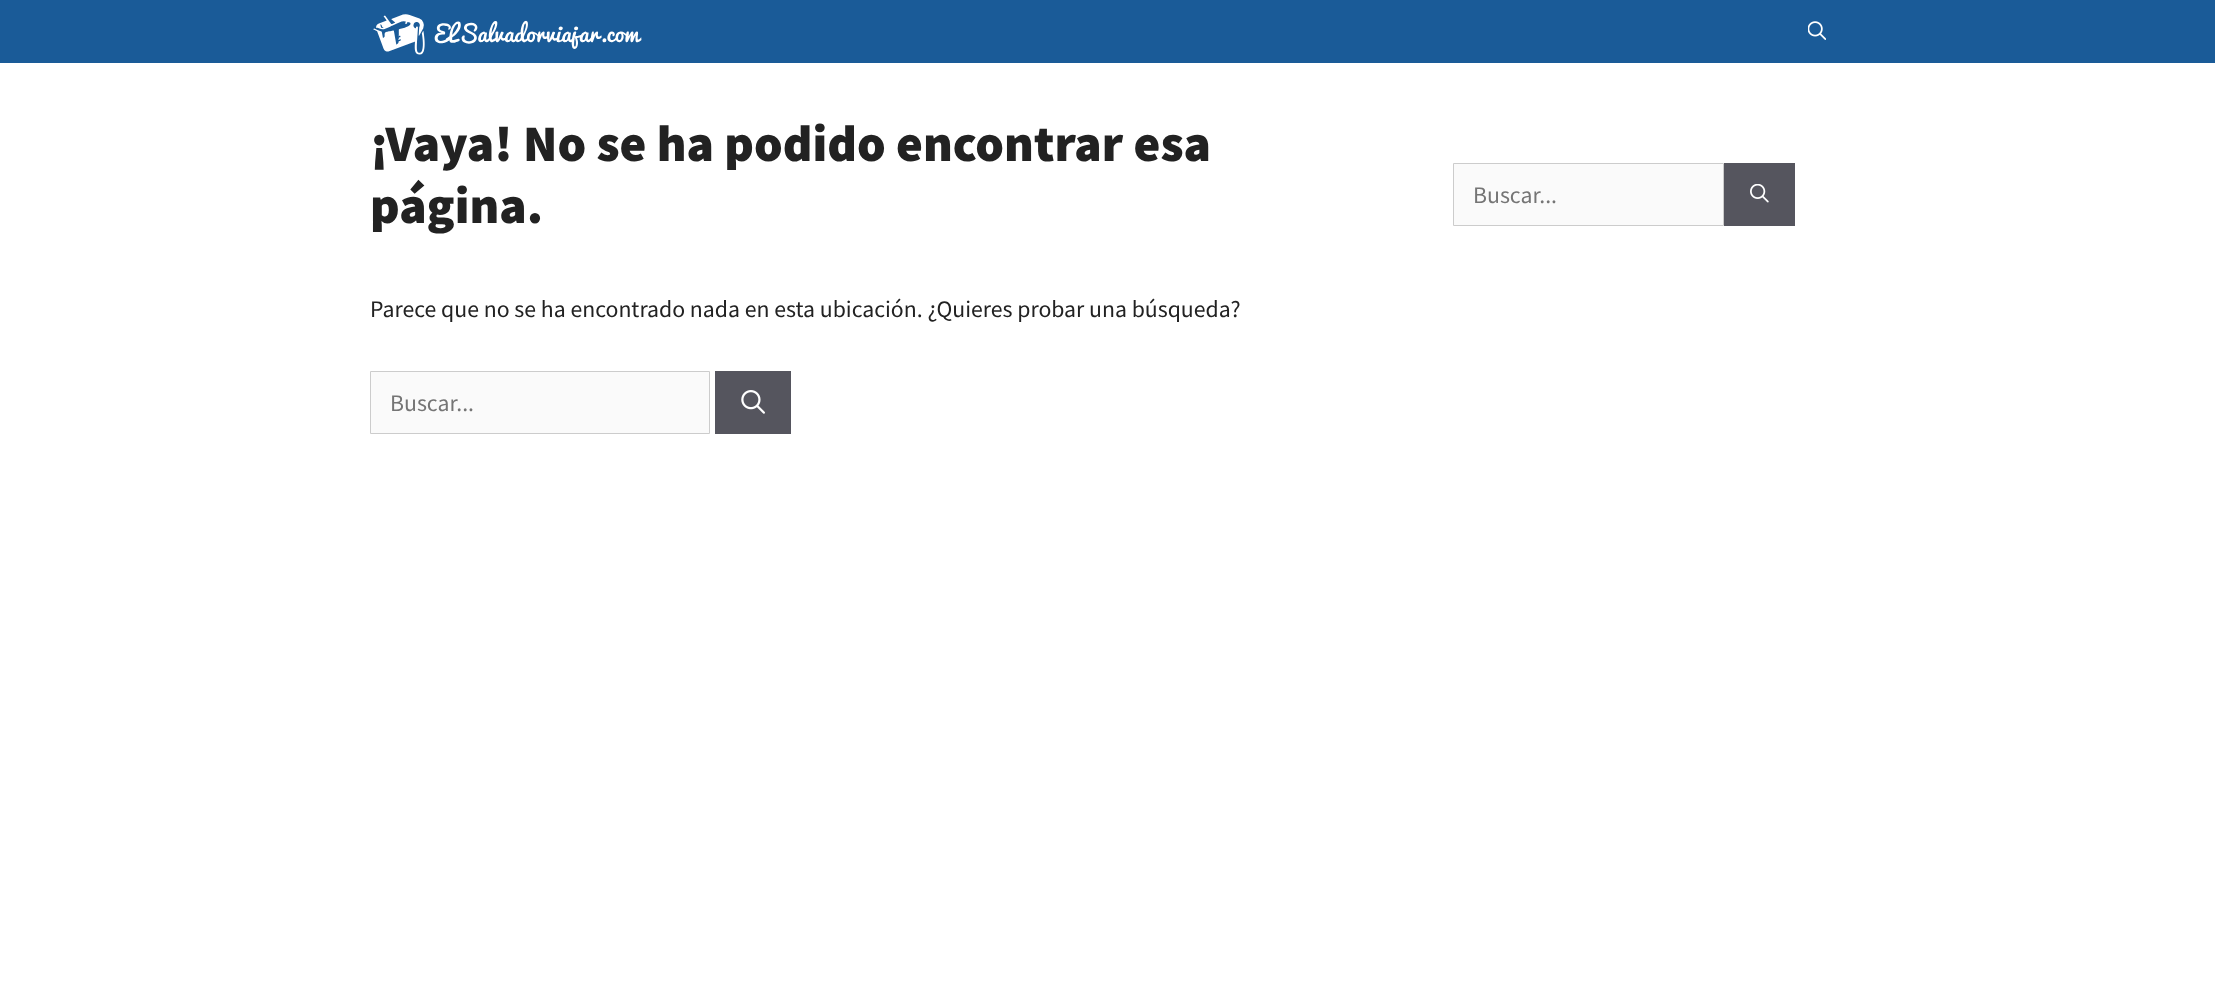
<svg xmlns="http://www.w3.org/2000/svg" width="2215" height="1007">
<style>
.a{font:900 51.25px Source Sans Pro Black;fill:#222}
.b{font:23.75px Source Sans Pro;fill:#222}
.c{font:23.75px Source Sans Pro;fill:#757575}
</style>
<rect width="100%" height="100%" fill="#fff"/>
<path fill="#1a5b98" d="M0 0h2215v63H0z"/>
<image href="1.png" x="373" y="14" width="269" height="41"/>
<image href="2.png" x="1808" y="21" width="18" height="19"/>
<path fill="#fafafa" stroke="#ccc" d="M370.5 371.5h339v62H370.5z"/>
<path fill="#55555e" d="M715 371h76v63H715z"/>
<image href="3.png" x="741" y="390" width="24" height="24"/>
<path fill="#fafafa" stroke="#ccc" d="M1453.5 163.5h270v62H1453.5z"/>
<path fill="#55555e" d="M1724 163h71v63H1724z"/>
<image href="4.png" x="1750" y="184" width="19" height="19"/>
<text class="a" x="370" y="161">¡Vaya! No se ha podido encontrar esa</text>
<text class="a" x="370" y="223">página.</text>
<text class="b" x="370" y="317">Parece que no se ha encontrado nada en esta ubicación. ¿Quieres probar una búsqueda?</text>
<text class="c" x="390" y="411">Buscar...</text>
<text class="c" x="1473" y="203">Buscar...</text>
</svg>
